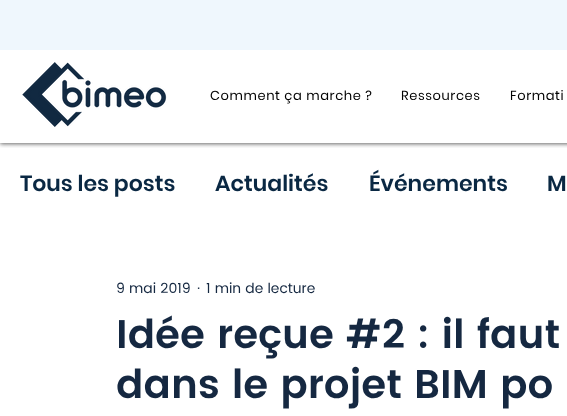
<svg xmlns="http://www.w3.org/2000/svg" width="567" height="416">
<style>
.a{font:13px 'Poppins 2';letter-spacing:0.6px;fill:#000}
.b{font:600 22px Poppins;fill:#0a2843}
.c{font:14px Poppins;fill:#152841}
.d{font:600 40px 'Poppins 2';fill:#152841}
</style>
<defs>
<clipPath id="clip1"><path d="M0 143h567v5H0z"/></clipPath>
</defs>
<rect width="100%" height="100%" fill="#fff"/>
<g clip-path="url(#clip1)">
<path fill="#00000099" filter="blur(2px)" d="M0 1h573v143H0z"/>
</g>
<path fill="#eff7fd" d="M0 0h567v50H0z"/>
<image href="1.png" x="22" y="62" width="145" height="65"/>
<text class="a" x="210" y="100">Comment ça marche ?</text>
<text class="a" x="401" y="100">Ressources</text>
<text class="a" x="510" y="100">Formati</text>
<text class="b" x="20" y="191">Tous les posts</text>
<text class="b" x="215" y="191">Actualités</text>
<text class="b" x="369" y="191">Événements</text>
<text class="b" x="547" y="191">M</text>
<text class="c" x="116" y="293">9 mai 2019</text>
<text class="c" x="197" y="293">·</text>
<text class="c" x="206" y="293">1 min de lecture</text>
<text class="d" x="116" y="348">Idée reçue #2 : il faut</text>
<text class="d" x="116" y="398">dans le projet BIM po</text>
</svg>
